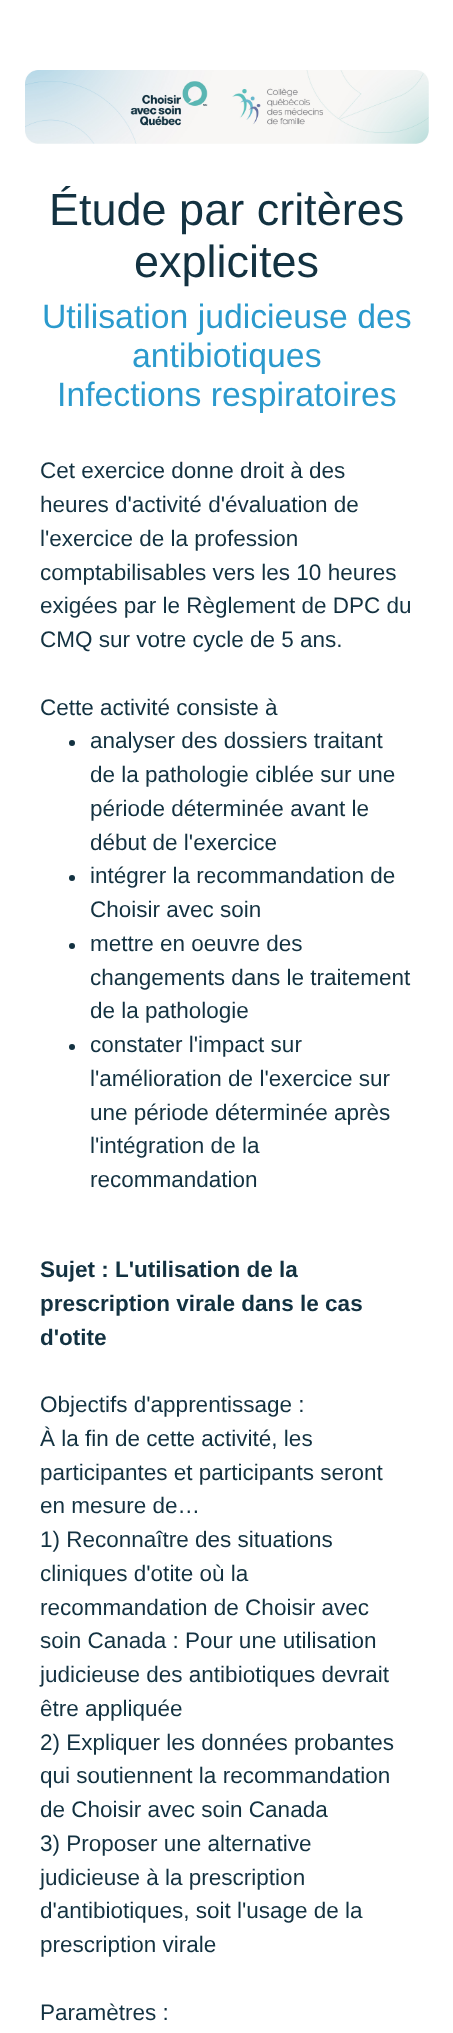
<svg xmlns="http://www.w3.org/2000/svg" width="453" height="2033">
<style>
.a{font:45px Liberation Sans;fill:#133241}
.b{font:33.75px Liberation Sans;fill:#2b9acd}
.c{font:22.5px Liberation Sans;fill:#133241}
.d{font:bold 22.5px Liberation Sans;fill:#133241}
</style>
<rect width="100%" height="100%" fill="#fff"/>
<image href="1.png" x="25" y="70" width="404" height="74"/>
<circle fill="#133241" cx="72" cy="743" r="3"/>
<circle fill="#133241" cx="72" cy="878" r="3"/>
<circle fill="#133241" cx="72" cy="946" r="3"/>
<circle fill="#133241" cx="72" cy="1047" r="3"/>
<text class="a" x="49" y="225">Étude par critères</text>
<text class="a" x="134" y="277">explicites</text>
<text class="b" x="42" y="328">Utilisation judicieuse des</text>
<text class="b" x="132" y="367">antibiotiques</text>
<text class="b" x="57" y="406">Infections respiratoires</text>
<text class="c" x="40" y="478">Cet exercice donne droit à des</text>
<text class="c" x="40" y="512">heures d'activité d'évaluation de</text>
<text class="c" x="40" y="546">l'exercice de la profession</text>
<text class="c" x="40" y="580">comptabilisables vers les 10 heures</text>
<text class="c" x="40" y="613">exigées par le Règlement de DPC du</text>
<text class="c" x="40" y="647">CMQ sur votre cycle de 5 ans.</text>
<text class="c" x="40" y="715">Cette activité consiste à</text>
<text class="c" x="90" y="748">analyser des dossiers traitant</text>
<text class="c" x="90" y="782">de la pathologie ciblée sur une</text>
<text class="c" x="90" y="816">période déterminée avant le</text>
<text class="c" x="90" y="850">début de l'exercice</text>
<text class="c" x="90" y="883">intégrer la recommandation de</text>
<text class="c" x="90" y="917">Choisir avec soin</text>
<text class="c" x="90" y="951">mettre en oeuvre des</text>
<text class="c" x="90" y="985">changements dans le traitement</text>
<text class="c" x="90" y="1018">de la pathologie</text>
<text class="c" x="90" y="1052">constater l'impact sur</text>
<text class="c" x="90" y="1086">l'amélioration de l'exercice sur</text>
<text class="c" x="90" y="1120">une période déterminée après</text>
<text class="c" x="90" y="1153">l'intégration de la</text>
<text class="c" x="90" y="1187">recommandation</text>
<text class="d" x="40" y="1277">Sujet : L'utilisation de la</text>
<text class="d" x="40" y="1311">prescription virale dans le cas</text>
<text class="d" x="40" y="1345">d'otite</text>
<text class="c" x="40" y="1412">Objectifs d'apprentissage :</text>
<text class="c" x="40" y="1446">À la fin de cette activité, les</text>
<text class="c" x="40" y="1480">participantes et participants seront</text>
<text class="c" x="40" y="1513">en mesure de…</text>
<text class="c" x="40" y="1547">1) Reconnaître des situations</text>
<text class="c" x="40" y="1581">cliniques d'otite où la</text>
<text class="c" x="40" y="1615">recommandation de Choisir avec</text>
<text class="c" x="40" y="1648">soin Canada : Pour une utilisation</text>
<text class="c" x="40" y="1682">judicieuse des antibiotiques devrait</text>
<text class="c" x="40" y="1716">être appliquée</text>
<text class="c" x="40" y="1750">2) Expliquer les données probantes</text>
<text class="c" x="40" y="1783">qui soutiennent la recommandation</text>
<text class="c" x="40" y="1817">de Choisir avec soin Canada</text>
<text class="c" x="40" y="1851">3) Proposer une alternative</text>
<text class="c" x="40" y="1885">judicieuse à la prescription</text>
<text class="c" x="40" y="1918">d'antibiotiques, soit l'usage de la</text>
<text class="c" x="40" y="1952">prescription virale</text>
<text class="c" x="40" y="2020">Paramètres :</text>
</svg>
